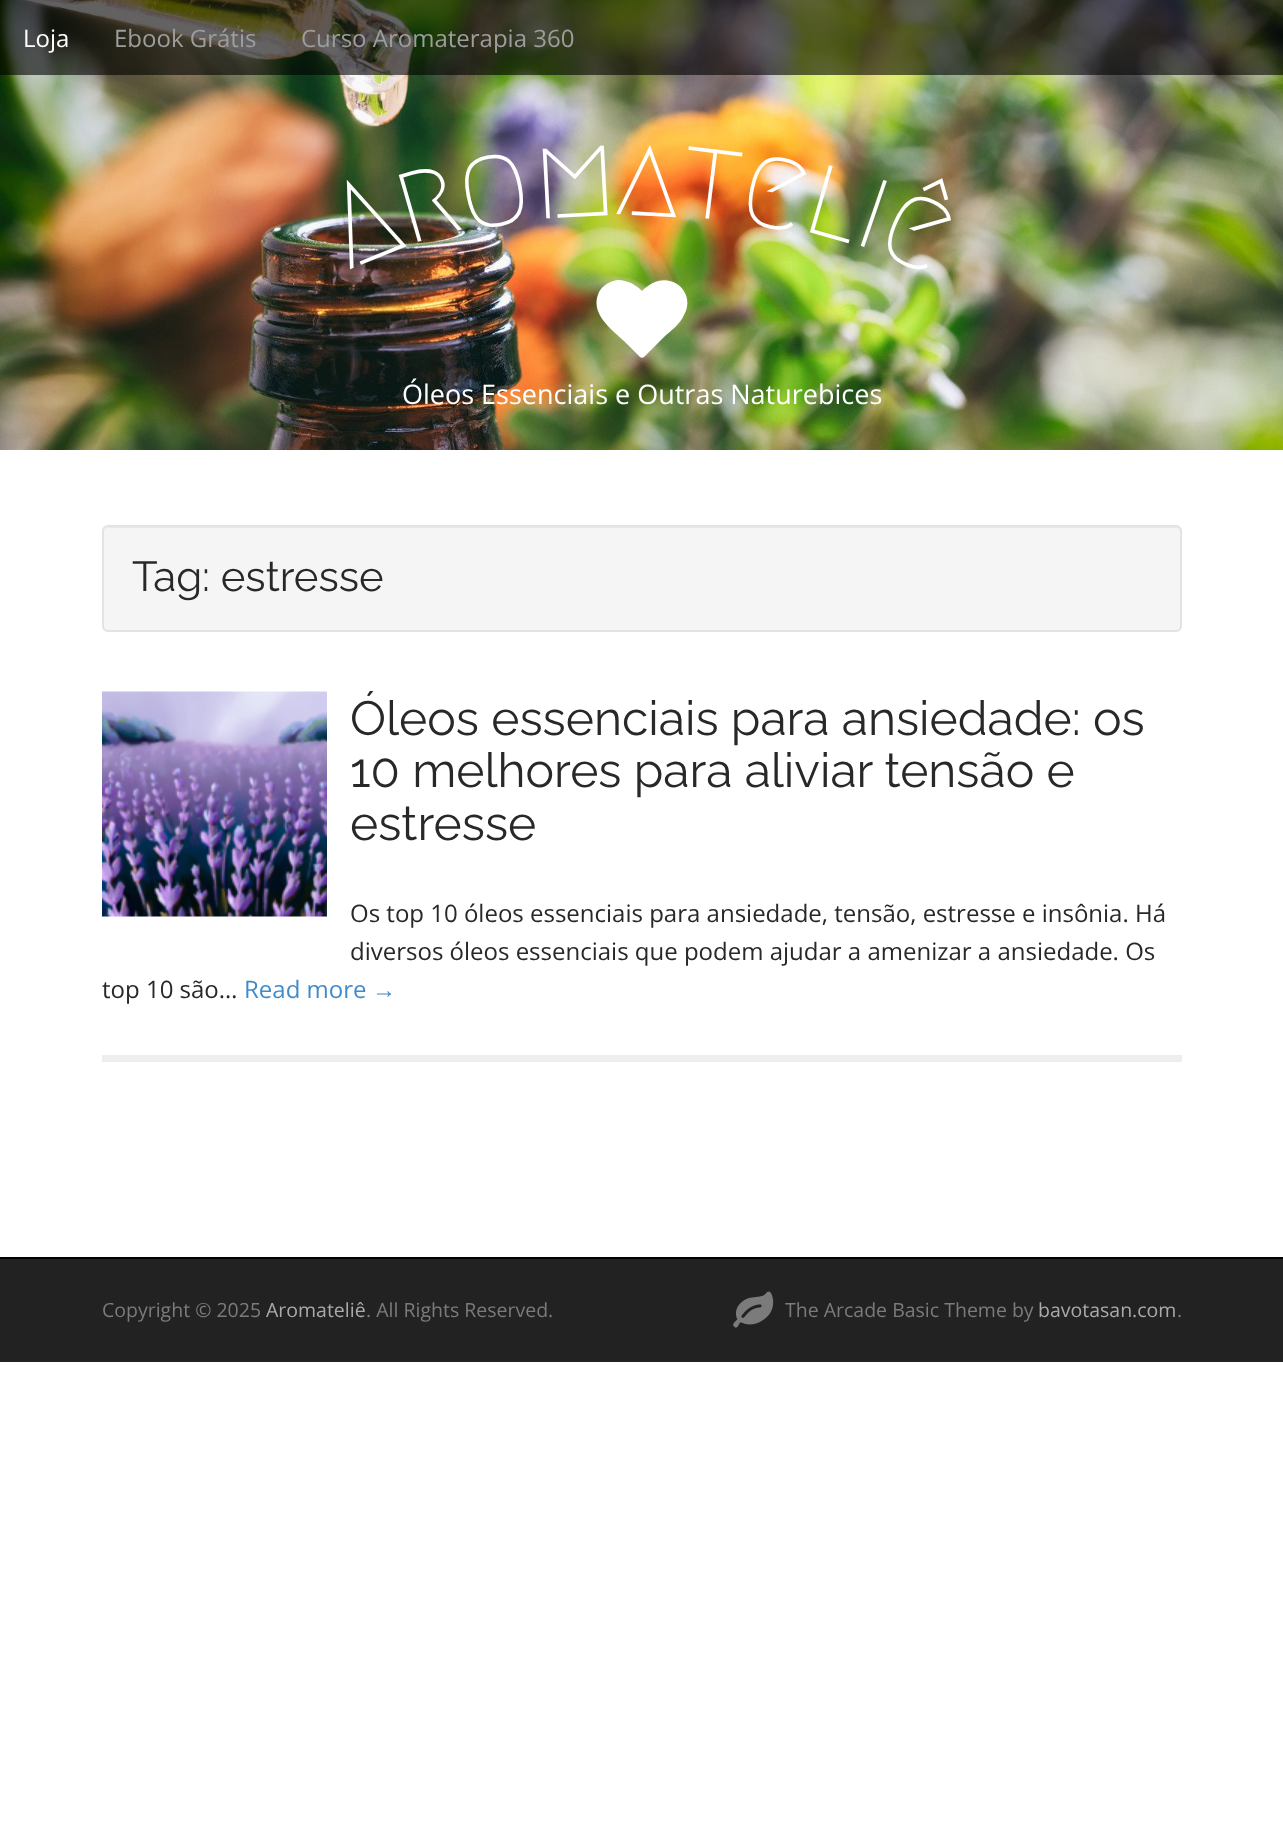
<svg xmlns="http://www.w3.org/2000/svg" width="1283" height="1823">
<style>
.a{font:24px Open Sans;fill:#fff}
.b{font:24px Open Sans;fill:#9d9d9d}
.c{font:500 120px Megrim;fill:#fff}
.d{font:27px Open Sans;fill:#fff}
.e{font:100 42px Raleway;fill:#282828}
.f{font:100 48px Raleway;fill:#282828}
.g{font:24px Open Sans;fill:#282828}
.h{font:24px Open Sans;fill:#428bca}
.i{font:24px Liberation Sans;fill:#428bca}
.j{font:19.5px Open Sans;fill:#7b7b7b}
.k{font:19.5px Open Sans;fill:#aaa}
</style>
<rect width="100%" height="100%" fill="#fff"/>
<image href="1.png" x="0" y="0" width="1283" height="450"/>
<path fill="#00000099" d="M0 0h1283v75H0z"/>
<path fill="#fff" d="M644 357c-1 1-3 1-4 0l-16-16c-13-12-35-28-25-49c4-7 11-11 19-12c10 0 18 5 24 11c9-9 22-15 35-7c5 3 9 9 10 15c1 5 0 11-3 16c-4 9-12 15-19 21z"/>
<rect fill="#f5f5f5" x="102" y="525" width="1080" height="107" rx="6"/>
<path fill="#e9e9e9" d="M108 528h1068c2 0 4 2 4 4v96c1-1 1-2 1-3v-93c0-3-2-5-5-5h-1067c-3 0-5 2-5 5c0-2 2-4 4-4z"/>
<rect fill="none" stroke="#e3e3e3" stroke-width="2" x="103" y="526" width="1078" height="105" rx="5"/>
<path fill="#eee" d="M102 1055h1080v7H102z"/>
<image href="2.png" x="102" y="691" width="225" height="226"/>
<path fill="#222" d="M0 1259h1283v103H0z"/>
<path fill="#000" d="M0 1257h1283v2H0z"/>
<image href="3.png" x="733" y="1291" width="41" height="37"/>
<text class="a" x="23" y="47">Loja</text>
<text class="b" x="114" y="47">Ebook Grátis</text>
<text class="b" x="301" y="47">Curso Aromaterapia 360</text>
<text class="c" x="348" y="270" transform="rotate(-22 348 270)">A</text>
<text class="c" x="407" y="245" transform="rotate(-16 407 245)">r</text>
<text class="c" x="465" y="232" transform="rotate(-11 465 232)">o</text>
<text class="c" x="535" y="219" transform="rotate(-3 535 219)">m</text>
<text class="c" x="614" y="214" transform="rotate(3 614 214)">a</text>
<text class="c" x="678" y="215" transform="rotate(7 678 215)">t</text>
<text class="c" x="735" y="220" transform="rotate(12 735 220)">e</text>
<text class="c" x="799" y="229" transform="rotate(16 799 229)">l</text>
<text class="c" x="850" y="242" transform="rotate(19 850 242)">i</text>
<text class="c" x="872" y="250" transform="rotate(24 872 250)">ê</text>
<text class="d" x="402" y="404">Óleos Essenciais e Outras Naturebices</text>
<text class="e" x="132" y="591">Tag: estresse</text>
<text class="f" x="350" y="735">Óleos essenciais para ansiedade: os</text>
<text class="f" x="350" y="787">10 melhores para aliviar tensão e</text>
<text class="f" x="350" y="840">estresse</text>
<text class="g" x="350" y="922">Os top 10 óleos essenciais para ansiedade, tensão, estresse e insônia. Há</text>
<text class="g" x="350" y="960">diversos óleos essenciais que podem ajudar a amenizar a ansiedade. Os</text>
<text class="g" x="102" y="998">top 10 são…</text>
<text class="h" x="244" y="998">Read more</text>
<text class="i" x="372" y="998">→</text>
<text class="j" x="102" y="1317">Copyright © 2025</text>
<text class="k" x="266" y="1317">Aromateliê</text>
<text class="j" x="366" y="1317">. All Rights Reserved.</text>
<text class="j" x="785" y="1317">The Arcade Basic Theme by</text>
<text class="k" x="1038" y="1317">bavotasan.com</text>
<text class="j" x="1177" y="1317">.</text>
</svg>
